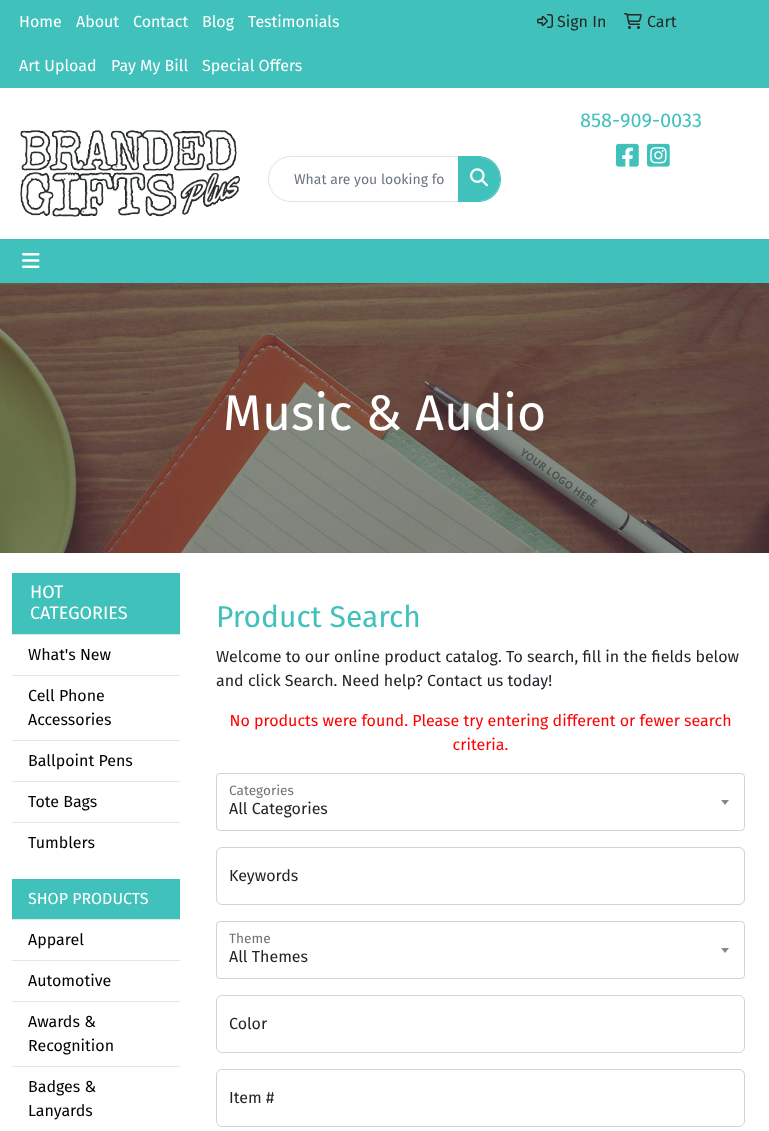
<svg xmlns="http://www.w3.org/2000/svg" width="769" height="1131">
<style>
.a{font:16px Fira Sans;fill:#fff}
.b{font:16px Fira Sans;fill:#272926}
.c{font:20px Fira Sans;fill:#40c1bb}
.d{font:14px Fira Sans;fill:#6c757d}
.e{font:50px Fira Sans;fill:#fff}
.f{font:18px Fira Sans;fill:#fff}
.g{font:16px Fira Sans;fill:#000}
</style>
<rect width="100%" height="100%" fill="#fff"/>
<path fill="#40c1bb" d="M0 0h769v88H0z"/>
<image href="1.png" x="537" y="14" width="16" height="14"/>
<image href="2.png" x="624" y="13" width="18" height="16"/>
<image href="3.png" x="616" y="143" width="23" height="24"/>
<image href="4.png" x="647" y="143" width="23" height="24"/>
<image href="5.png" x="20" y="130" width="220" height="87"/>
<path fill="none" stroke="#e4e4e4" d="M291 156.5h167.5v45h-167.5c-12.5 0-22.5-10-22.5-22.5c0-12.5 10-22.5 22.5-22.5z"/>
<path fill="#40c1bb" d="M458 157h20c12 0 22 10 22 22c0 12-10 22-22 22h-20z"/>
<path fill="#40c1bb" fill-rule="evenodd" d="M458 156h20c13 0 23 10 23 23c0 13-10 23-23 23h-20zm0 1h20c12 0 22 10 22 22c0 12-10 22-22 22h-20z"/>
<image href="6.png" x="470" y="168" width="18" height="19"/>
<path fill="#40c1bb" d="M0 239h769v44H0z"/>
<image href="7.png" x="22" y="253" width="18" height="15"/>
<image href="8.png" x="0" y="283" width="769" height="270"/>
<path fill="#40c1bb" d="M12 573h168v61H12z"/>
<path fill="#e5e5e5" d="M12 634h168v1H12z"/>
<path fill="#e5e5e5" d="M12 675h168v1H12z"/>
<path fill="#e5e5e5" d="M12 740h168v1H12z"/>
<path fill="#e5e5e5" d="M12 781h168v1H12z"/>
<path fill="#e5e5e5" d="M12 822h168v1H12z"/>
<path fill="#40c1bb" d="M12 879h168v40H12z"/>
<path fill="#e5e5e5" d="M12 919h168v1H12z"/>
<path fill="#e5e5e5" d="M12 960h168v1H12z"/>
<path fill="#e5e5e5" d="M12 1001h168v1H12z"/>
<path fill="#e5e5e5" d="M12 1066h168v1H12z"/>
<image href="9.png" x="216" y="604" width="529" height="523"/>
<text class="a" x="19" y="27">Home</text>
<text class="a" x="76" y="27">About</text>
<text class="a" x="133" y="27">Contact</text>
<text class="a" x="202" y="27">Blog</text>
<text class="a" x="248" y="27">Testimonials</text>
<text class="a" x="19" y="71">Art Upload</text>
<text class="a" x="111" y="71">Pay My Bill</text>
<text class="a" x="202" y="71">Special Offers</text>
<text class="b" x="557" y="27">Sign In</text>
<text class="b" x="647" y="27">Cart</text>
<text class="c" x="580" y="127">858-909-0033</text>
<text class="d" x="294" y="184">What are you looking fo</text>
<text class="e" x="223" y="430">Music &amp; Audio</text>
<text class="f" x="30" y="598">HOT</text>
<text class="f" x="30" y="619">CATEGORIES</text>
<text class="g" x="28" y="660">What's New</text>
<text class="g" x="28" y="701">Cell Phone</text>
<text class="g" x="28" y="725">Accessories</text>
<text class="g" x="28" y="766">Ballpoint Pens</text>
<text class="g" x="28" y="807">Tote Bags</text>
<text class="g" x="28" y="848">Tumblers</text>
<text class="a" x="28" y="904">SHOP PRODUCTS</text>
<text class="g" x="28" y="945">Apparel</text>
<text class="g" x="28" y="986">Automotive</text>
<text class="g" x="28" y="1027">Awards &amp;</text>
<text class="g" x="28" y="1051">Recognition</text>
<text class="g" x="28" y="1092">Badges &amp;</text>
<text class="g" x="28" y="1116">Lanyards</text>
</svg>
